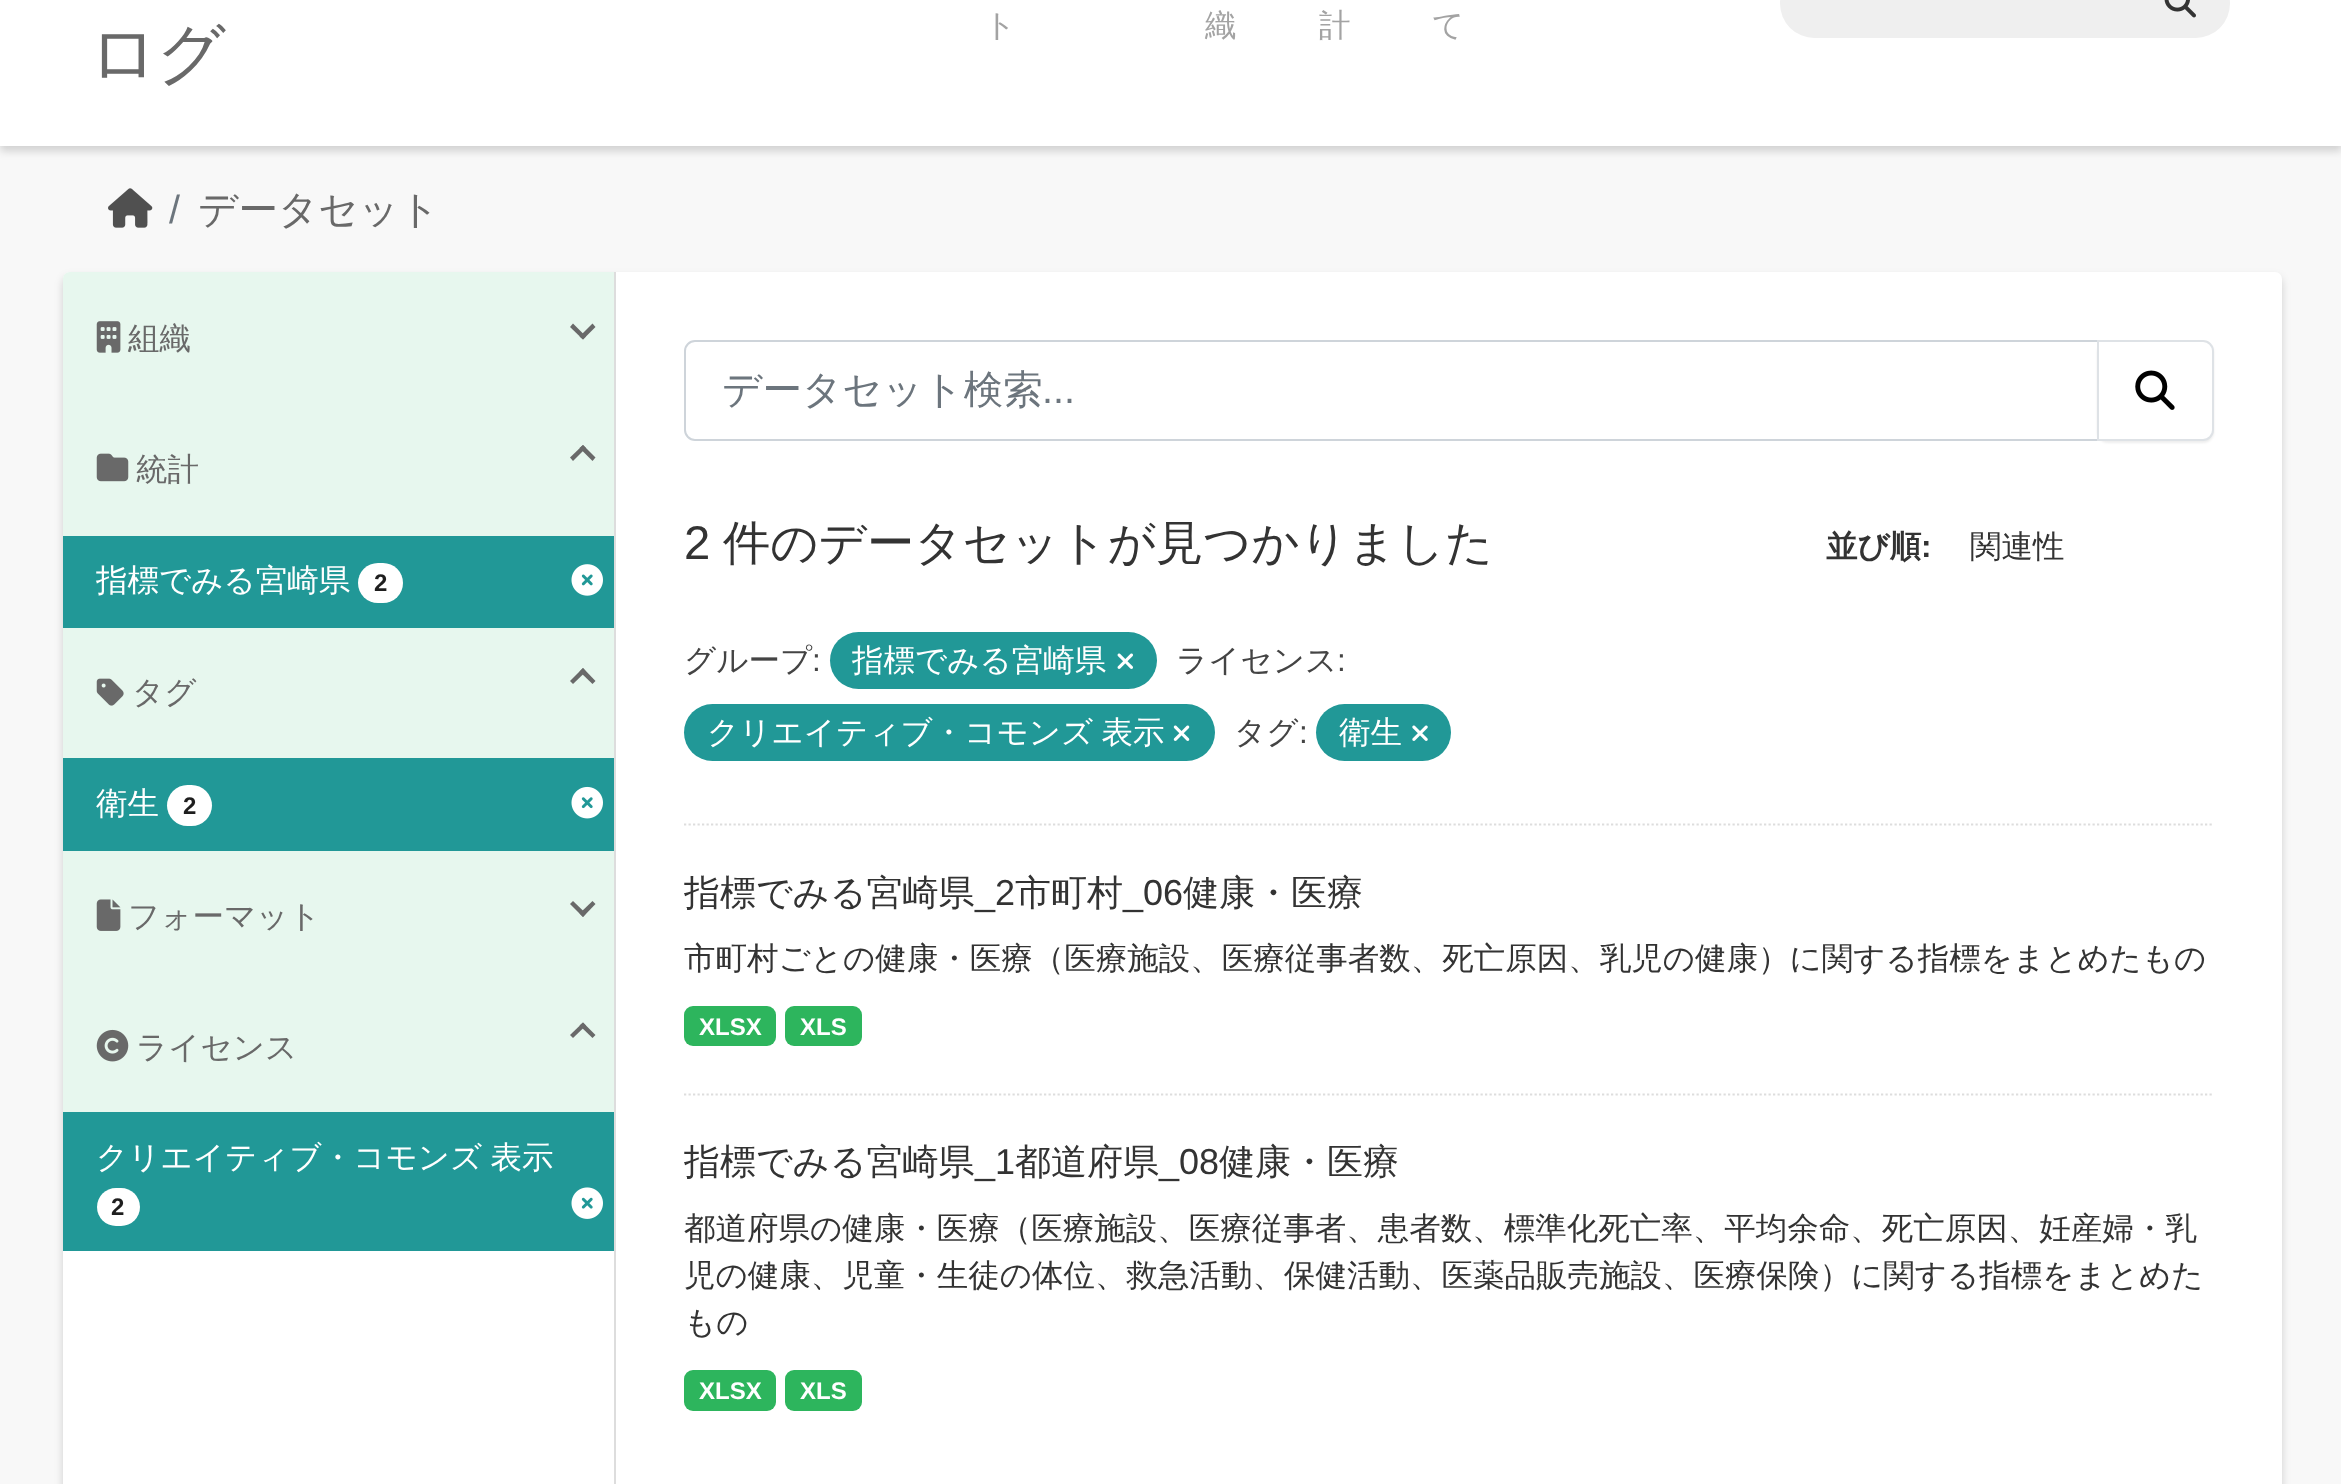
<svg xmlns="http://www.w3.org/2000/svg" width="2341" height="1484">
<style>
.a{font:500 68px WenQuanYi Zen Hei;letter-spacing:-2px;fill:#696969}
.b{font:500 31.5px WenQuanYi Zen Hei;fill:#a3a3a3}
.c{font:39.5px Liberation Sans;fill:#6c757d}
.d{font:500 39.5px WenQuanYi Zen Hei;fill:#696969}
.e{font:500 31.5px WenQuanYi Zen Hei;fill:#696969}
.f{font:500 31.5px WenQuanYi Zen Hei;fill:#fff}
.g{font:bold 24px Liberation Sans;fill:#1e1e1e}
.h{font:500 39.5px WenQuanYi Zen Hei;fill:#6c757d}
.i{font:47.25px Liberation Sans;fill:#333}
.j{font:500 47.25px WenQuanYi Zen Hei;fill:#333}
.k{font:bold 31.5px WenQuanYi Zen Hei;fill:#333}
.l{font:bold 31.5px Liberation Sans;fill:#333}
.m{font:500 31.5px WenQuanYi Zen Hei;fill:#333}
.n{font:500 31.5px WenQuanYi Zen Hei;fill:#444}
.o{font:31.5px Liberation Sans;fill:#444}
.p{font:500 36px WenQuanYi Zen Hei;fill:#333}
.q{font:36px Liberation Sans;fill:#333}
.r{font:bold 24px Liberation Sans;fill:#fff}
</style>
<rect width="100%" height="100%" fill="#f8f8f8"/>
<path fill="#00000029" filter="blur(4.5px)" d="M0 -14h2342v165H0z"/>
<path fill="#fff" d="M0 0h2341v146H0z"/>
<rect fill="#efefef" x="1780" y="-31" width="450" height="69" rx="34.5"/>
<image href="1.png" x="2164" y="0" width="32" height="18"/>
<image href="2.png" x="108" y="188" width="45" height="40"/>
<rect fill="#00000029" filter="blur(4.5px)" x="63" y="277" width="2219" height="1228" rx="7"/>
<rect fill="#fff" x="63" y="272" width="2219" height="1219" rx="7"/>
<path fill="#e7f7ee" d="M70 272h544v131h-551v-124c0-4 3-7 7-7z"/>
<image href="3.png" x="96" y="321" width="25" height="32"/>
<path fill="#696969" d="M592.5 323.5l3 3.5l-12.5 12.5l-3.5-3z"/>
<path fill="#696969" d="M573 323.5l13 13l-3 3l-13-12.5z"/>
<path fill="#e7f7ee" d="M63 403h551v133H63z"/>
<image href="4.png" x="96" y="453" width="33" height="29"/>
<path fill="#696969" d="M583 445l12.5 12.5l-3 3.5l-13-13z"/>
<path fill="#696969" d="M583 445l3 3l-13 13l-3-3.5z"/>
<path fill="#219897" d="M63 536h551v92H63z"/>
<rect fill="#fff" x="358" y="563" width="45" height="40" rx="20"/>
<image href="5.png" x="571" y="564" width="32" height="32"/>
<path fill="#e7f7ee" d="M63 628h551v130H63z"/>
<path fill="#696969" d="M583 668l12.5 13l-3 3l-13-12.5z"/>
<path fill="#696969" d="M583 668l3 3.5l-13 12.5l-3-3z"/>
<image href="6.png" x="96" y="678" width="28" height="28"/>
<path fill="#219897" d="M63 758h551v93H63z"/>
<rect fill="#fff" x="167" y="785" width="45" height="41" rx="20.5"/>
<image href="7.png" x="571" y="786" width="32" height="33"/>
<path fill="#e7f7ee" d="M63 851h551v261H63z"/>
<image href="8.png" x="96" y="899" width="25" height="32"/>
<path fill="#696969" d="M592.5 901l3 3l-12.5 13l-3.5-3.5z"/>
<path fill="#696969" d="M573 901l13 12.5l-3 3.5l-13-13z"/>
<image href="9.png" x="96" y="1029" width="33" height="33"/>
<path fill="#696969" d="M583 1022.5l12.5 12.5l-3 3l-13-12.5z"/>
<path fill="#696969" d="M583 1022.5l3 3l-13 12.5l-3-3z"/>
<path fill="#219897" d="M63 1112h551v139H63z"/>
<rect fill="#fff" x="97" y="1188" width="43" height="38" rx="19"/>
<image href="10.png" x="571" y="1187" width="32" height="32"/>
<path fill="#ddd" d="M614 272h2v1212H614z"/>
<path fill="none" stroke="#ddd" stroke-width="2.2" stroke-dasharray="2.25 2.25" d="M684 824.5h1530"/>
<path fill="none" stroke="#ced4da" stroke-width="2" d="M695 341h1403v99h-1403c-5.5 0-10-4.5-10-10v-79c0-5.5 4.5-10 10-10z"/>
<rect fill="#00000012" filter="blur(1px)" x="2097" y="342" width="117" height="101" rx="11"/>
<path fill="#fff" stroke="#dee2e6" stroke-width="2" d="M2098 341h105c5.5 0 10 4.5 10 10v79c0 5.5-4.5 10-10 10h-105z"/>
<image href="11.png" x="2135" y="370" width="40" height="40"/>
<rect fill="#219897" x="830" y="632" width="327" height="57" rx="28.5"/>
<image href="12.png" x="1117" y="653" width="16" height="16"/>
<rect fill="#219897" x="684" y="704" width="531" height="57" rx="28.5"/>
<image href="13.png" x="1173" y="725" width="17" height="16"/>
<rect fill="#219897" x="1316" y="704" width="135" height="57" rx="28.5"/>
<image href="14.png" x="1412" y="725" width="16" height="16"/>
<path fill="none" stroke="#ddd" stroke-width="2.2" stroke-dasharray="2.25 2.25" d="M684 1094.5h1530"/>
<rect fill="#2db55d" x="684" y="1006" width="92" height="40" rx="9"/>
<rect fill="#2db55d" x="785" y="1006" width="77" height="40" rx="9"/>
<rect fill="#2db55d" x="684" y="1370" width="92" height="41" rx="9"/>
<rect fill="#2db55d" x="785" y="1370" width="77" height="41" rx="9"/>
<text class="a" x="89" y="77">ログ</text>
<text class="b" x="984" y="36">ト</text>
<text class="b" x="1205" y="36">織</text>
<text class="b" x="1319" y="36">計</text>
<text class="b" x="1432" y="36">て</text>
<text class="c" x="169" y="223">/</text>
<text class="d" x="198" y="223">データセット</text>
<text class="e" x="128" y="349">組織</text>
<text class="e" x="136" y="480">統計</text>
<text class="f" x="96" y="591">指標でみる宮崎県</text>
<text class="g" x="374" y="591">2</text>
<text class="e" x="132" y="703">タグ</text>
<text class="f" x="96" y="814">衛生</text>
<text class="g" x="183" y="814">2</text>
<text class="e" x="128" y="927">フォーマット</text>
<text class="e" x="136" y="1058">ライセンス</text>
<text class="f" x="96" y="1168" word-spacing="-1">クリエイティブ・コモンズ 表示</text>
<text class="g" x="111" y="1215">2</text>
<text class="h" x="722" y="403">データセット検索</text>
<text class="c" x="1042" y="403">...</text>
<text class="i" x="684" y="559">2</text>
<text class="j" x="723" y="559">件のデータセットが見つかりました</text>
<text class="k" x="1826" y="557">並び順</text>
<text class="l" x="1921" y="557">:</text>
<text class="m" x="1970" y="557">関連性</text>
<text class="n" x="684" y="671">グループ</text>
<text class="o" x="812" y="671">:</text>
<text class="f" x="852" y="671">指標でみる宮崎県</text>
<text class="n" x="1176" y="671">ライセンス</text>
<text class="o" x="1337" y="671">:</text>
<text class="f" x="707" y="743" word-spacing="-1">クリエイティブ・コモンズ 表示</text>
<text class="n" x="1234" y="743">タグ</text>
<text class="o" x="1299" y="743">:</text>
<text class="f" x="1339" y="743">衛生</text>
<text class="p" x="684" y="905">指標でみる宮崎県</text>
<text class="q" x="975" y="905">_2</text>
<text class="p" x="1015" y="905">市町村</text>
<text class="q" x="1123" y="905">_06</text>
<text class="p" x="1183" y="905">健康・医療</text>
<text class="m" x="684" y="969">市町村ごとの健康・医療（医療施設、医療従事者数、死亡原因、乳児の健康）に関する指標をまとめたもの</text>
<text class="r" x="699" y="1035">XLSX</text>
<text class="r" x="800" y="1035">XLS</text>
<text class="p" x="684" y="1174">指標でみる宮崎県</text>
<text class="q" x="975" y="1174">_1</text>
<text class="p" x="1015" y="1174">都道府県</text>
<text class="q" x="1159" y="1174">_08</text>
<text class="p" x="1219" y="1174">健康・医療</text>
<text class="m" x="684" y="1239">都道府県の健康・医療（医療施設、医療従事者、患者数、標準化死亡率、平均余命、死亡原因、妊産婦・乳</text>
<text class="m" x="684" y="1286">児の健康、児童・生徒の体位、救急活動、保健活動、医薬品販売施設、医療保険）に関する指標をまとめた</text>
<text class="m" x="684" y="1333">もの</text>
<text class="r" x="699" y="1399">XLSX</text>
<text class="r" x="800" y="1399">XLS</text>
</svg>
